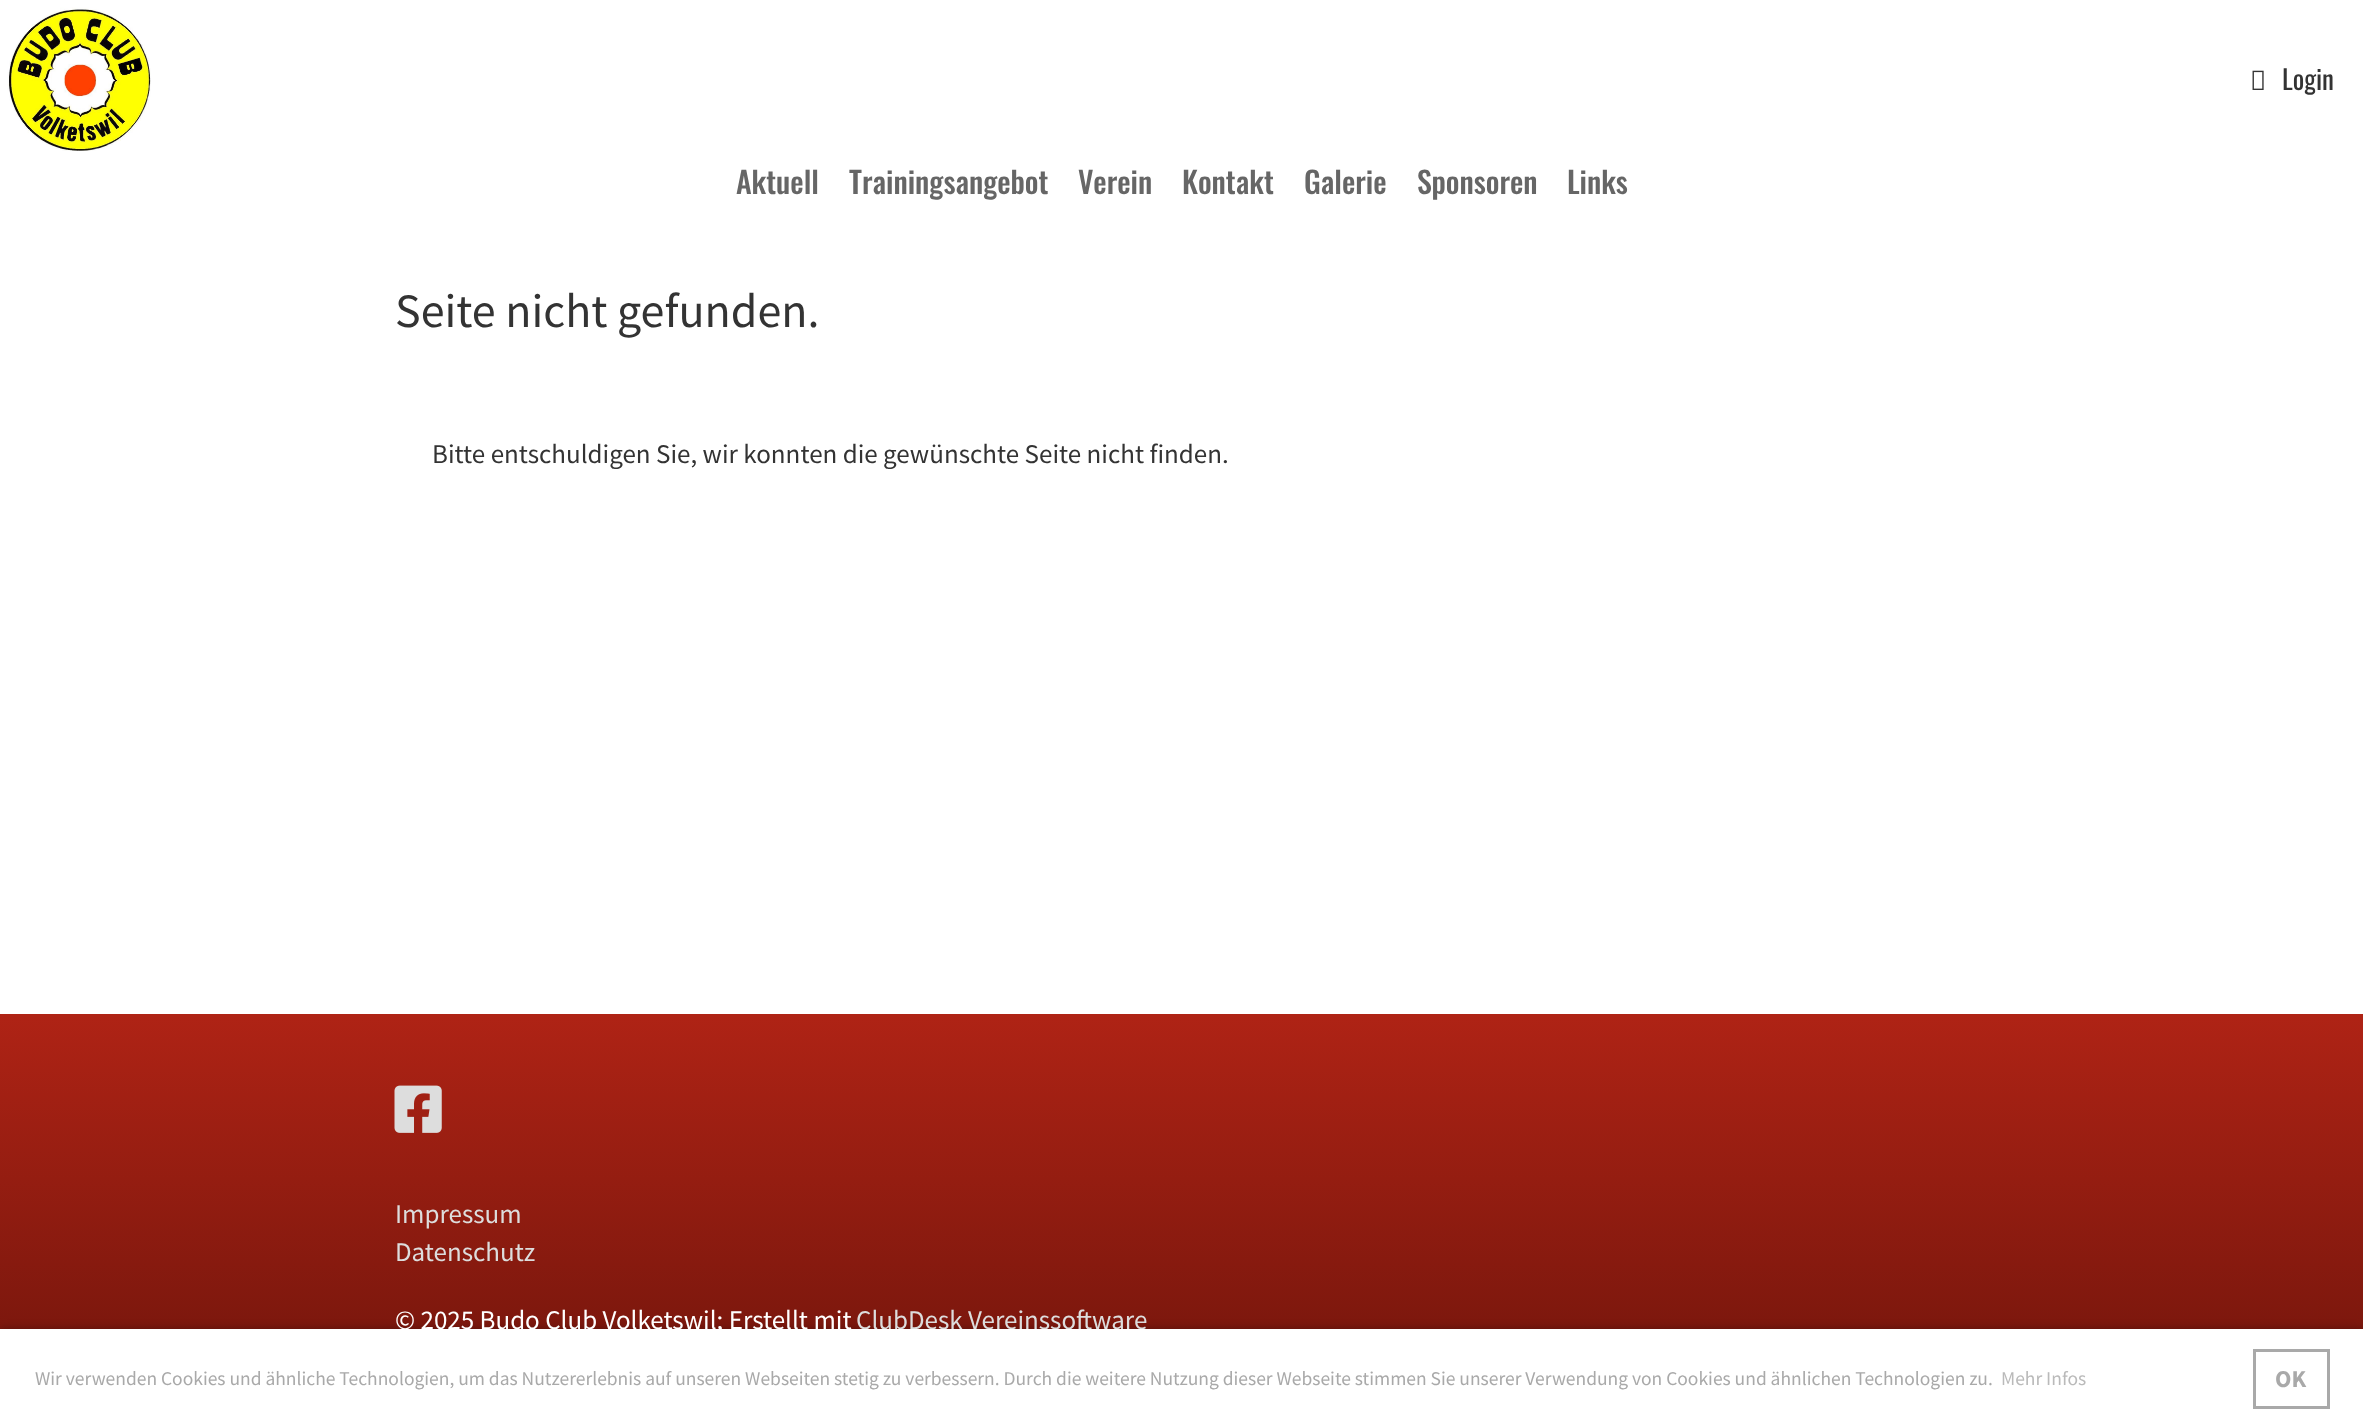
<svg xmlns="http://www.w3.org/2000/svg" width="2363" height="1427">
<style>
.a{font:27px Oswald;fill:#333}
.b{font:500 30px Oswald;fill:#666}
.c{font:48px Source Sans Pro;fill:#333}
.d{font:27px Source Sans Pro;fill:#333}
.e{font:27px Source Sans Pro;fill:#ddd}
.f{font:27px Source Sans Pro;fill:#fff}
.g{font:19.5px Source Sans Pro;fill:#a9a9a9}
.h{font:19.5px Source Sans Pro;fill:#bababa}
.i{font:bold 24px Source Sans Pro;fill:#a9a9a9}
</style>
<defs>
<linearGradient id="g1" gradientUnits="userSpaceOnUse" x1="1182" y1="1014" x2="1182" y2="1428"><stop offset="0" stop-color="#af2315"/><stop offset="1" stop-color="#6d140b"/></linearGradient>
</defs>
<rect width="100%" height="100%" fill="#fff"/>
<image href="1.png" x="7" y="7" width="144" height="144"/>
<image href="2.png" x="2252" y="70" width="12" height="20"/>
<path fill="url(#g1)" d="M0 1014h2363v315H0z"/>
<image href="3.png" x="394" y="1085" width="48" height="48"/>
<path fill="#0000004d" filter="blur(4px)" d="M0 1329h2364v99H0z"/>
<text class="a" x="2282" y="90">Login</text>
<text class="b" x="736" y="194">Aktuell</text>
<text class="b" x="849" y="194">Trainingsangebot</text>
<text class="b" x="1078" y="194">Verein</text>
<text class="b" x="1182" y="194">Kontakt</text>
<text class="b" x="1304" y="194">Galerie</text>
<text class="b" x="1417" y="194">Sponsoren</text>
<text class="b" x="1567" y="194">Links</text>
<text class="c" x="395" y="327">Seite nicht gefunden.</text>
<text class="d" x="432" y="463">Bitte entschuldigen Sie, wir konnten die gewünschte Seite nicht finden.</text>
<text class="e" x="395" y="1223">Impressum</text>
<text class="e" x="395" y="1261">Datenschutz</text>
<text class="f" x="395" y="1329">© 2025 Budo Club Volketswil; Erstellt mit</text>
<text class="e" x="856" y="1329">ClubDesk Vereinssoftware</text>
<path fill="#fff" d="M0 1329h2363v98H0z"/>
<text class="g" x="35" y="1385">Wir verwenden Cookies und ähnliche Technologien, um das Nutzererlebnis auf unseren Webseiten stetig zu verbessern. Durch die weitere Nutzung dieser Webseite stimmen Sie unserer Verwendung von Cookies und ähnlichen Technologien zu.</text>
<text class="h" x="2001" y="1385">Mehr Infos</text>
<path fill="none" stroke="#a9a9a9" stroke-width="3" d="M2254.5 1350.5h74v57H2254.5z"/>
<text class="i" x="2275" y="1387">OK</text>
</svg>
